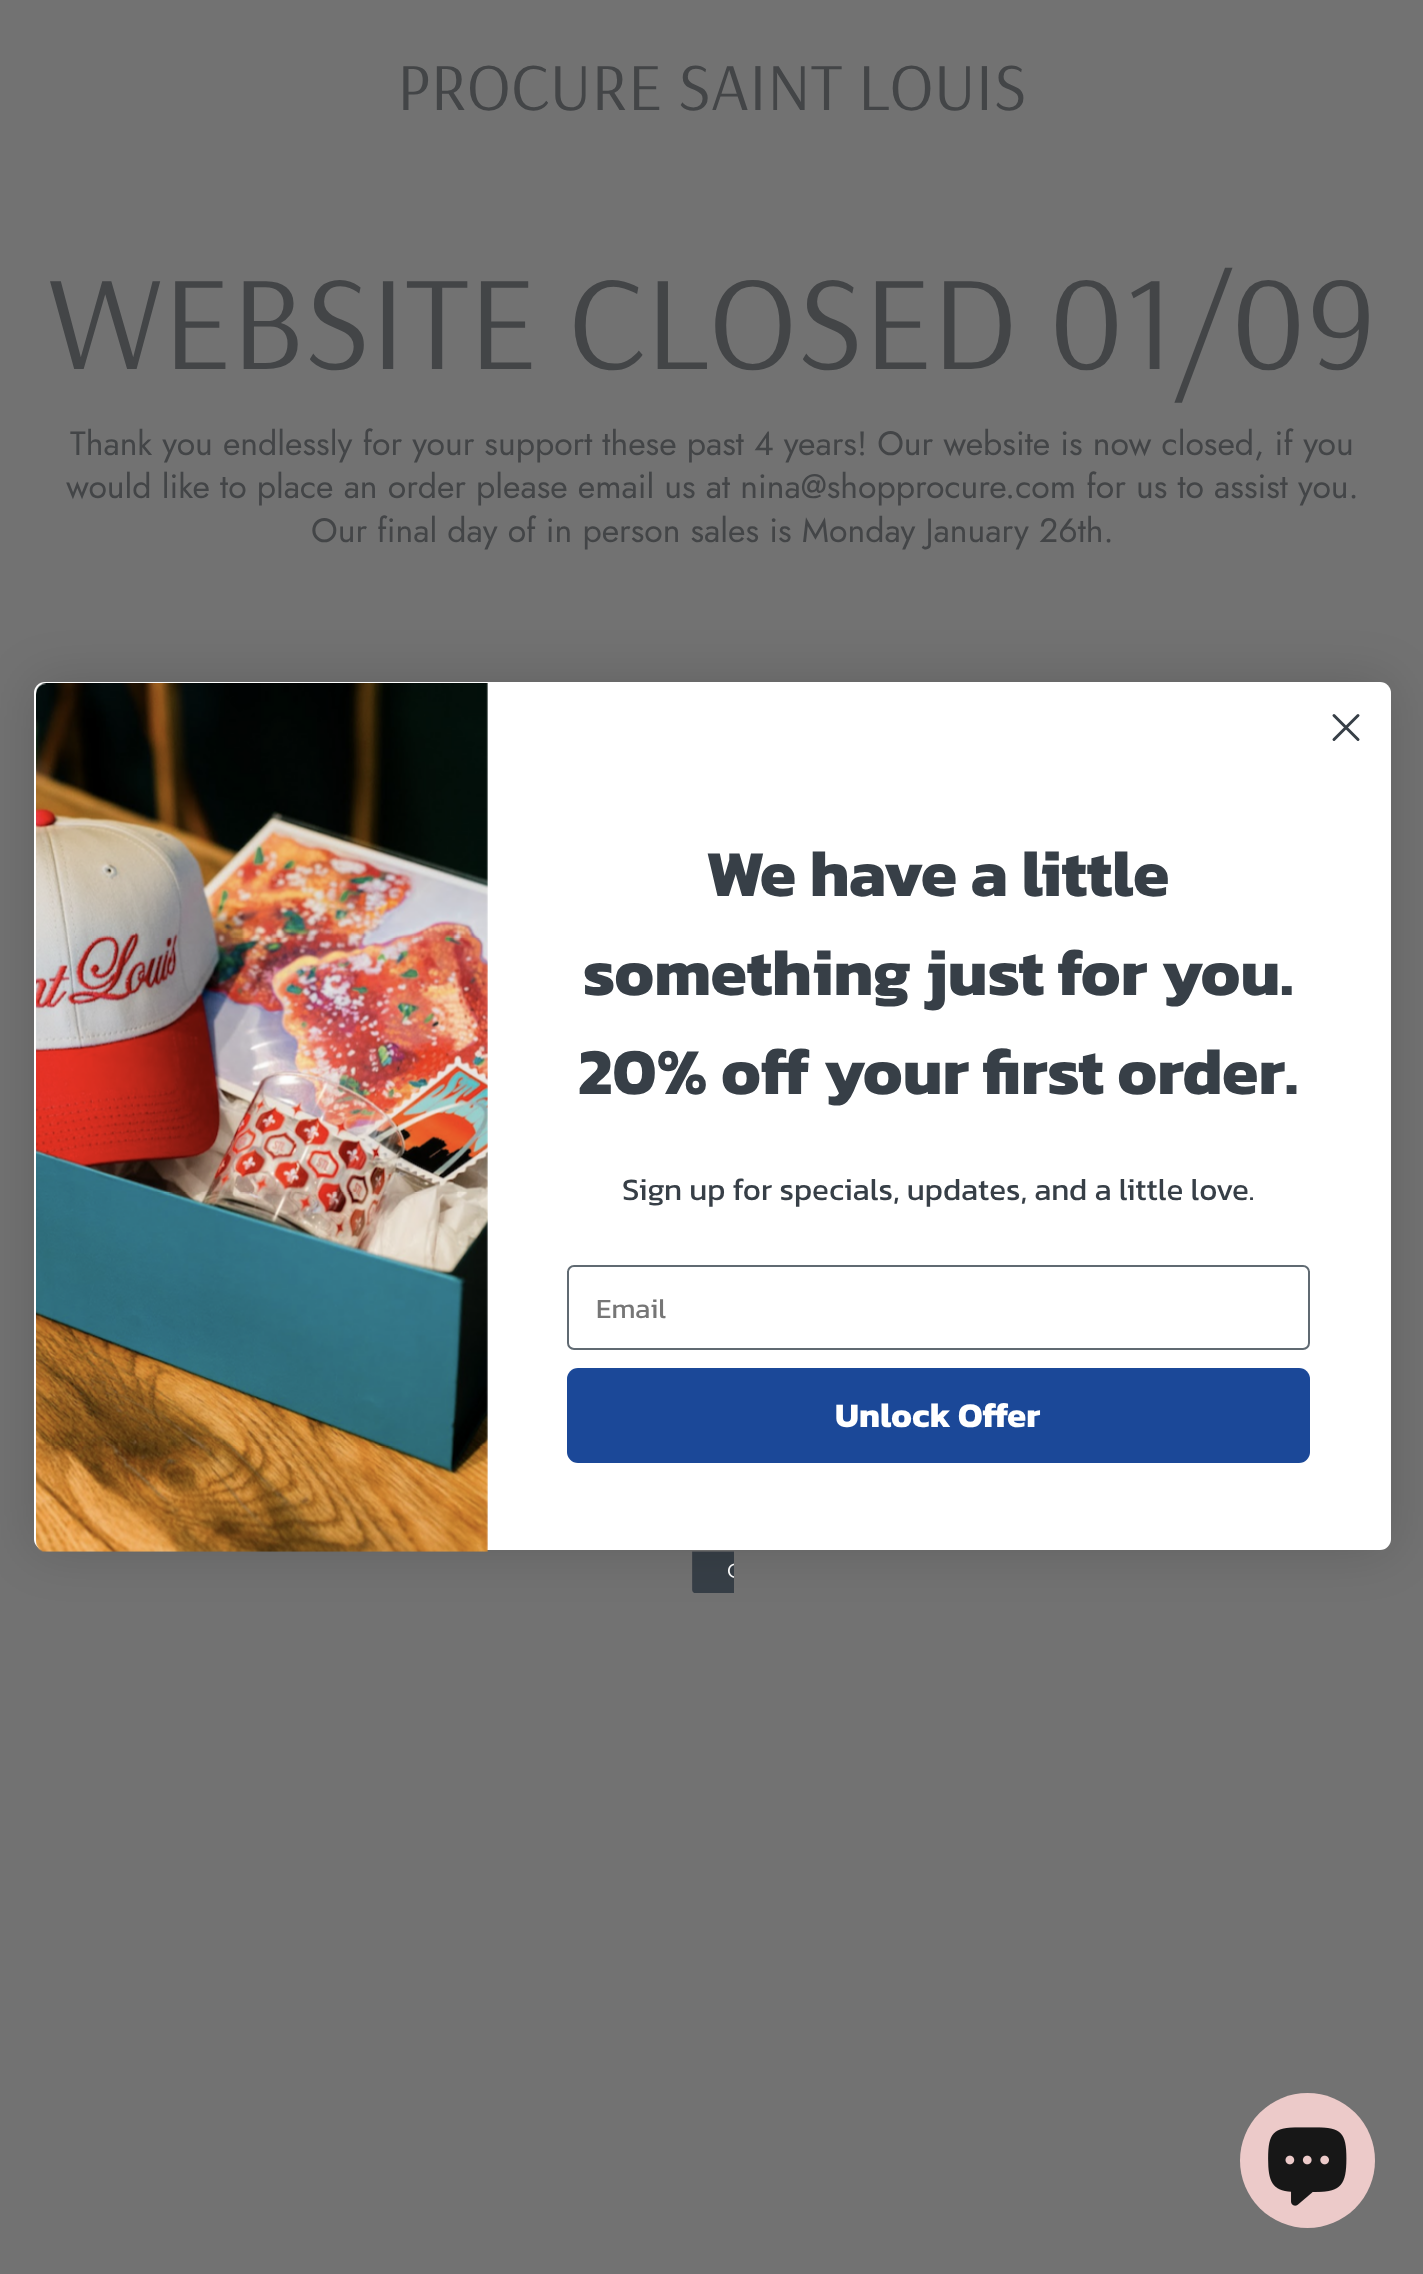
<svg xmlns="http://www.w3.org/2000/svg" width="1423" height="2274">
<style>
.a{font:67.5px Arsenal;fill:#434547}
.b{font:135px Arsenal;fill:#434547}
.c{font:33.75px Jost;fill:#434547}
.d{font:bold 66px Kanit;fill:#373f47}
.e{font:31.25px Kanit;fill:#373f47}
.f{font:28px Kanit;fill:#767676}
.g{font:bold 34.75px Kanit;fill:#fff}
</style>
<rect width="100%" height="100%" fill="#727272"/>
<image href="2.png" x="692" y="1551" width="42" height="42"/>
<rect fill="#00000026" filter="blur(26px)" x="34" y="682" width="1357" height="868" rx="11"/>
<rect fill="#fff" x="34" y="682" width="1357" height="868" rx="11"/>
<path fill="none" stroke="#373f47" stroke-width="3" stroke-linecap="round" stroke-linejoin="round" d="M1334 715.5l24 24m-24 0l24-24z"/>
<image href="1.png" x="36" y="683" width="452" height="869"/>
<rect fill="none" stroke="#606a72" stroke-width="2" x="568" y="1266" width="741" height="83" rx="6"/>
<rect fill="#1b4898" x="567" y="1368" width="743" height="95" rx="11"/>
<circle fill="#eccac9" cx="1307.5" cy="2160.5" r="67.5"/>
<image href="3.png" x="1268" y="2127" width="79" height="79"/>
<text class="a" x="397" y="110">PROCURE SAINT LOUIS</text>
<text class="b" x="48" y="369">WEBSITE CLOSED 01/09</text>
<text class="c" x="70" y="455">Thank you endlessly for your support these past 4 years! Our website is now closed, if you</text>
<text class="c" x="66" y="498">would like to place an order please email us at nina@shopprocure.com for us to assist you.</text>
<text class="c" x="311" y="542">Our final day of in person sales is Monday January 26th.</text>
<text class="d" x="706" y="896">We have a little</text>
<text class="d" x="583" y="995">something just for you.</text>
<text class="d" x="578" y="1094">20% off your first order.</text>
<text class="e" x="622" y="1200">Sign up for specials, updates, and a little love.</text>
<text class="f" x="596" y="1318">Email</text>
<text class="g" x="835" y="1427">Unlock Offer</text>
</svg>
